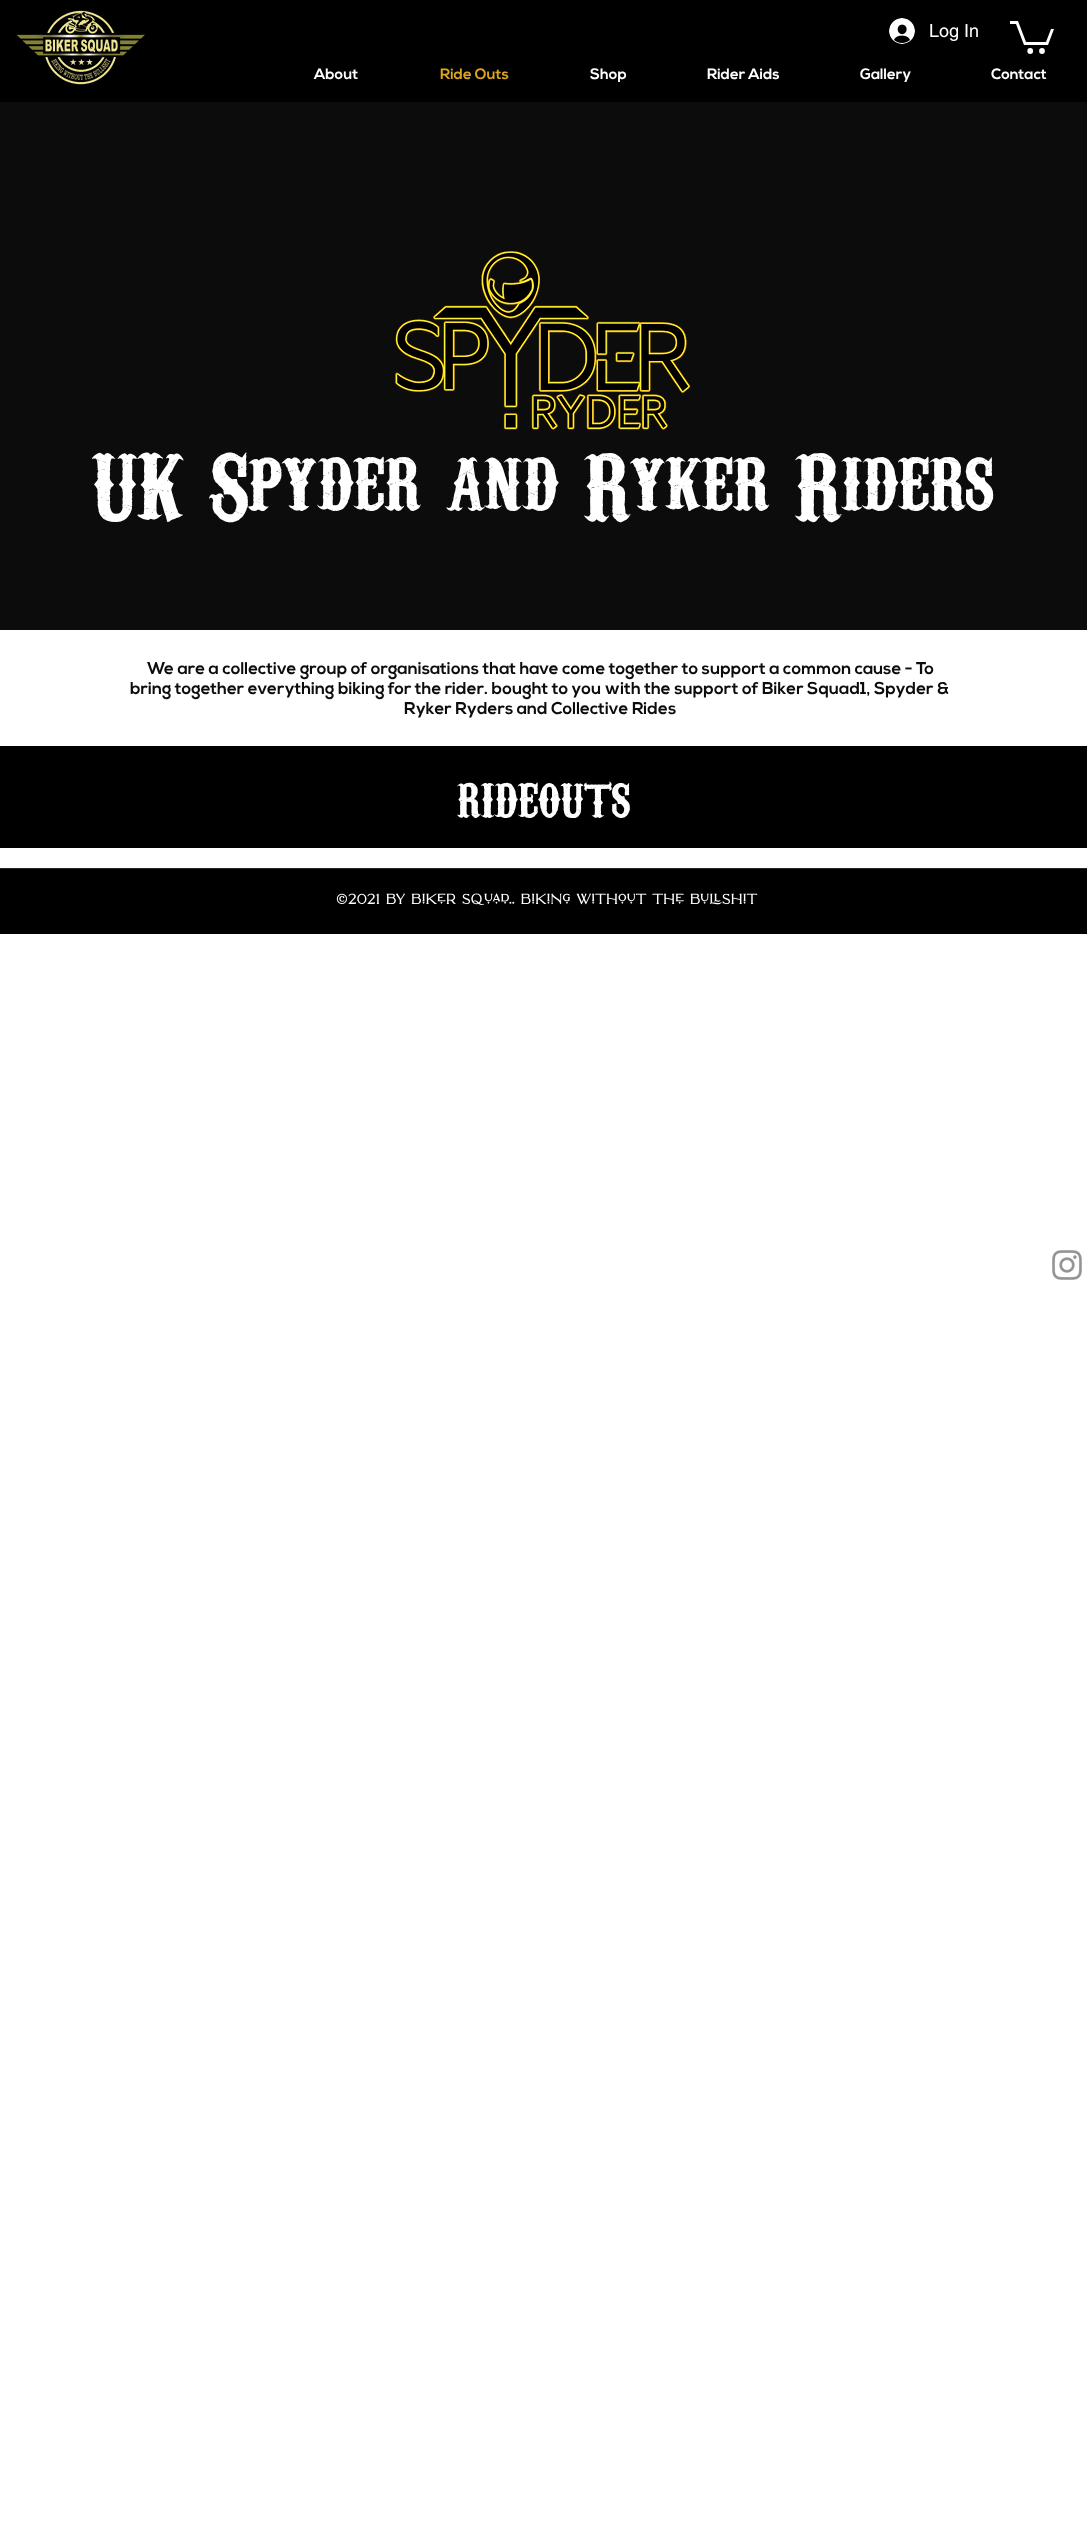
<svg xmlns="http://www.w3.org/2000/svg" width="1087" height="2529">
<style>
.a{font:18px helvetica;fill:#fff}
.b{font:bold 15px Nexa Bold;fill:#fff}
.c{font:bold 15px Nexa Bold;fill:#dba61f}
.d{font:92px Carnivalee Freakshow;fill:#fff}
.e{font:bold 17px Nexa Bold;fill:#0c0c0d}
.f{font:60px Carnivalee Freakshow;fill:#fff}
</style>
<rect width="100%" height="100%" fill="#fff"/>
<path fill="#000" d="M0 0h1087v102H0z"/>
<image href="1.png" x="16" y="10" width="129" height="75"/>
<image href="2.png" x="889" y="18" width="26" height="26"/>
<path fill="#fff" d="M1054 29l-6 16h-24l-8-21h-6v-3h8l8 21h20l5-13"/>
<circle fill="#fff" cx="1042" cy="51" r="2.9"/>
<circle fill="#fff" cx="1030.2" cy="51" r="2.9"/>
<path fill="#0c0c0d" d="M0 102h1087v528H0z"/>
<image href="3.png" x="395" y="251" width="296" height="179"/>
<path fill="#000" d="M0 746h1087v102H0z"/>
<path fill="#000" d="M0 869h1087v65H0z"/>
<path fill="#262626" d="M0 868h1087v1H0z"/>
<image href="4.png" x="336" y="893" width="422" height="13"/>
<image href="5.png" x="1052" y="1250" width="30" height="30"/>
<text class="a" x="929" y="37">Log In</text>
<text class="b" x="314" y="79">About</text>
<text class="c" x="440" y="79">Ride Outs</text>
<text class="b" x="590" y="79">Shop</text>
<text class="b" x="707" y="79">Rider Aids</text>
<text class="b" x="860" y="79">Gallery</text>
<text class="b" x="991" y="79">Contact</text>
<text class="d" x="92" y="511">UK Spyder and Ryker Riders</text>
<text class="e" x="147" y="674">We are a collective group of organisations that have come together to support a common cause - To</text>
<text class="e" x="130" y="694">bring together everything biking for the rider. bought to you with the support of Biker Squad1, Spyder &amp;</text>
<text class="e" x="404" y="714">Ryker Ryders and Collective Rides</text>
<text class="f" x="457" y="818">rideouts</text>
</svg>
